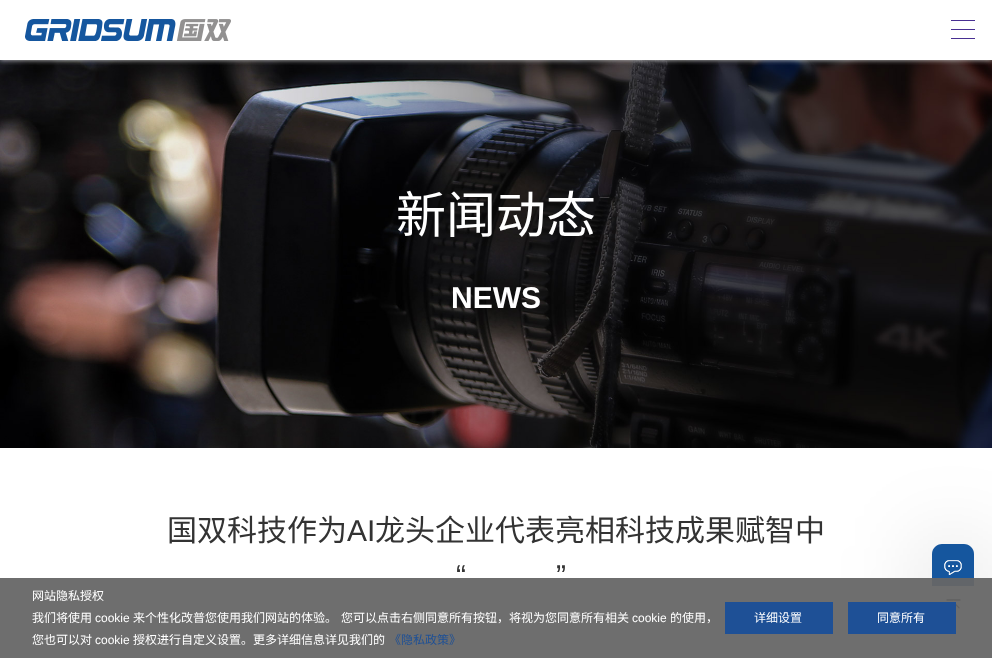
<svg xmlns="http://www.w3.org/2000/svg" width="992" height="658">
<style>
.a{font:50px Noto Sans CJK SC;fill:#fff}
.b{font:bold 30px Liberation Sans;fill:#fff}
.c{font:30px Noto Sans CJK SC;fill:#333}
.d{font:30px Liberation Sans;fill:#333}
.e{font:12px Noto Sans CJK SC;fill:#fff}
.f{font:12px Liberation Sans;fill:#fff}
.g{font:12px Noto Sans CJK SC;fill:#1e5096}
</style>
<defs>
<clipPath id="clip1"><path d="M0 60h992v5H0z"/></clipPath>
</defs>
<rect width="100%" height="100%" fill="#fff"/>
<image href="2.png" x="0" y="60" width="992" height="388"/>
<g clip-path="url(#clip1)">
<path fill="#ccc" filter="blur(2.5px)" d="M0 0h992v60H0z"/>
</g>
<image href="1.png" x="25" y="19" width="206" height="22"/>
<path fill="#482f92" d="M951 29h24v1H951z"/>
<path fill="#482f92" d="M951 20h24v1H951z"/>
<path fill="#482f92" d="M951 38h24v1H951z"/>
<rect fill="#00000033" filter="blur(43.5px)" x="932" y="544" width="42" height="84" rx="10"/>
<path fill="#15569e" d="M942 544h22c5.5 0 10 4.5 10 10v32h-42v-32c0-5.5 4.5-10 10-10z"/>
<image href="3.png" x="944" y="560" width="18" height="15"/>
<path fill="#fff" d="M932 586h42v32c0 5.5-4.5 10-10 10h-22c-5.5 0-10-4.5-10-10z"/>
<image href="4.png" x="946" y="599" width="15" height="10"/>
<path fill="#666666f2" d="M0 578h992v80H0z"/>
<path fill="#1e5096" d="M725 602h108v32H725z"/>
<path fill="#1e5096" d="M848 602h108v32H848z"/>
<text class="a" x="396" y="233">新闻动态</text>
<text class="b" x="451" y="308">NEWS</text>
<text class="c" x="167" y="541">国双科技作为</text>
<text class="d" x="347" y="541">AI</text>
<text class="c" x="375" y="541">龙头企业代表亮相科技成果赋智中</text>
<text class="d" x="456" y="586">“</text>
<text class="d" x="556" y="586">”</text>
<text class="e" x="32" y="600">网站隐私授权</text>
<text class="e" x="32" y="622">我们将使用</text>
<text class="f" x="95" y="622">cookie</text>
<text class="e" x="133" y="622">来个性化改普您使用我们网站的体验。</text>
<text class="e" x="341" y="622">您可以点击右侧同意所有按钮，将视为您同意所有相关</text>
<text class="f" x="632" y="622">cookie</text>
<text class="e" x="670" y="622">的使用，</text>
<text class="e" x="32" y="644">您也可以对</text>
<text class="f" x="95" y="644">cookie</text>
<text class="e" x="133" y="644">授权进行自定义设置。更多详细信息详见我们的</text>
<text class="g" x="389" y="644">《隐私政策》</text>
<text class="e" x="754" y="622">详细设置</text>
<text class="e" x="877" y="622">同意所有</text>
</svg>
